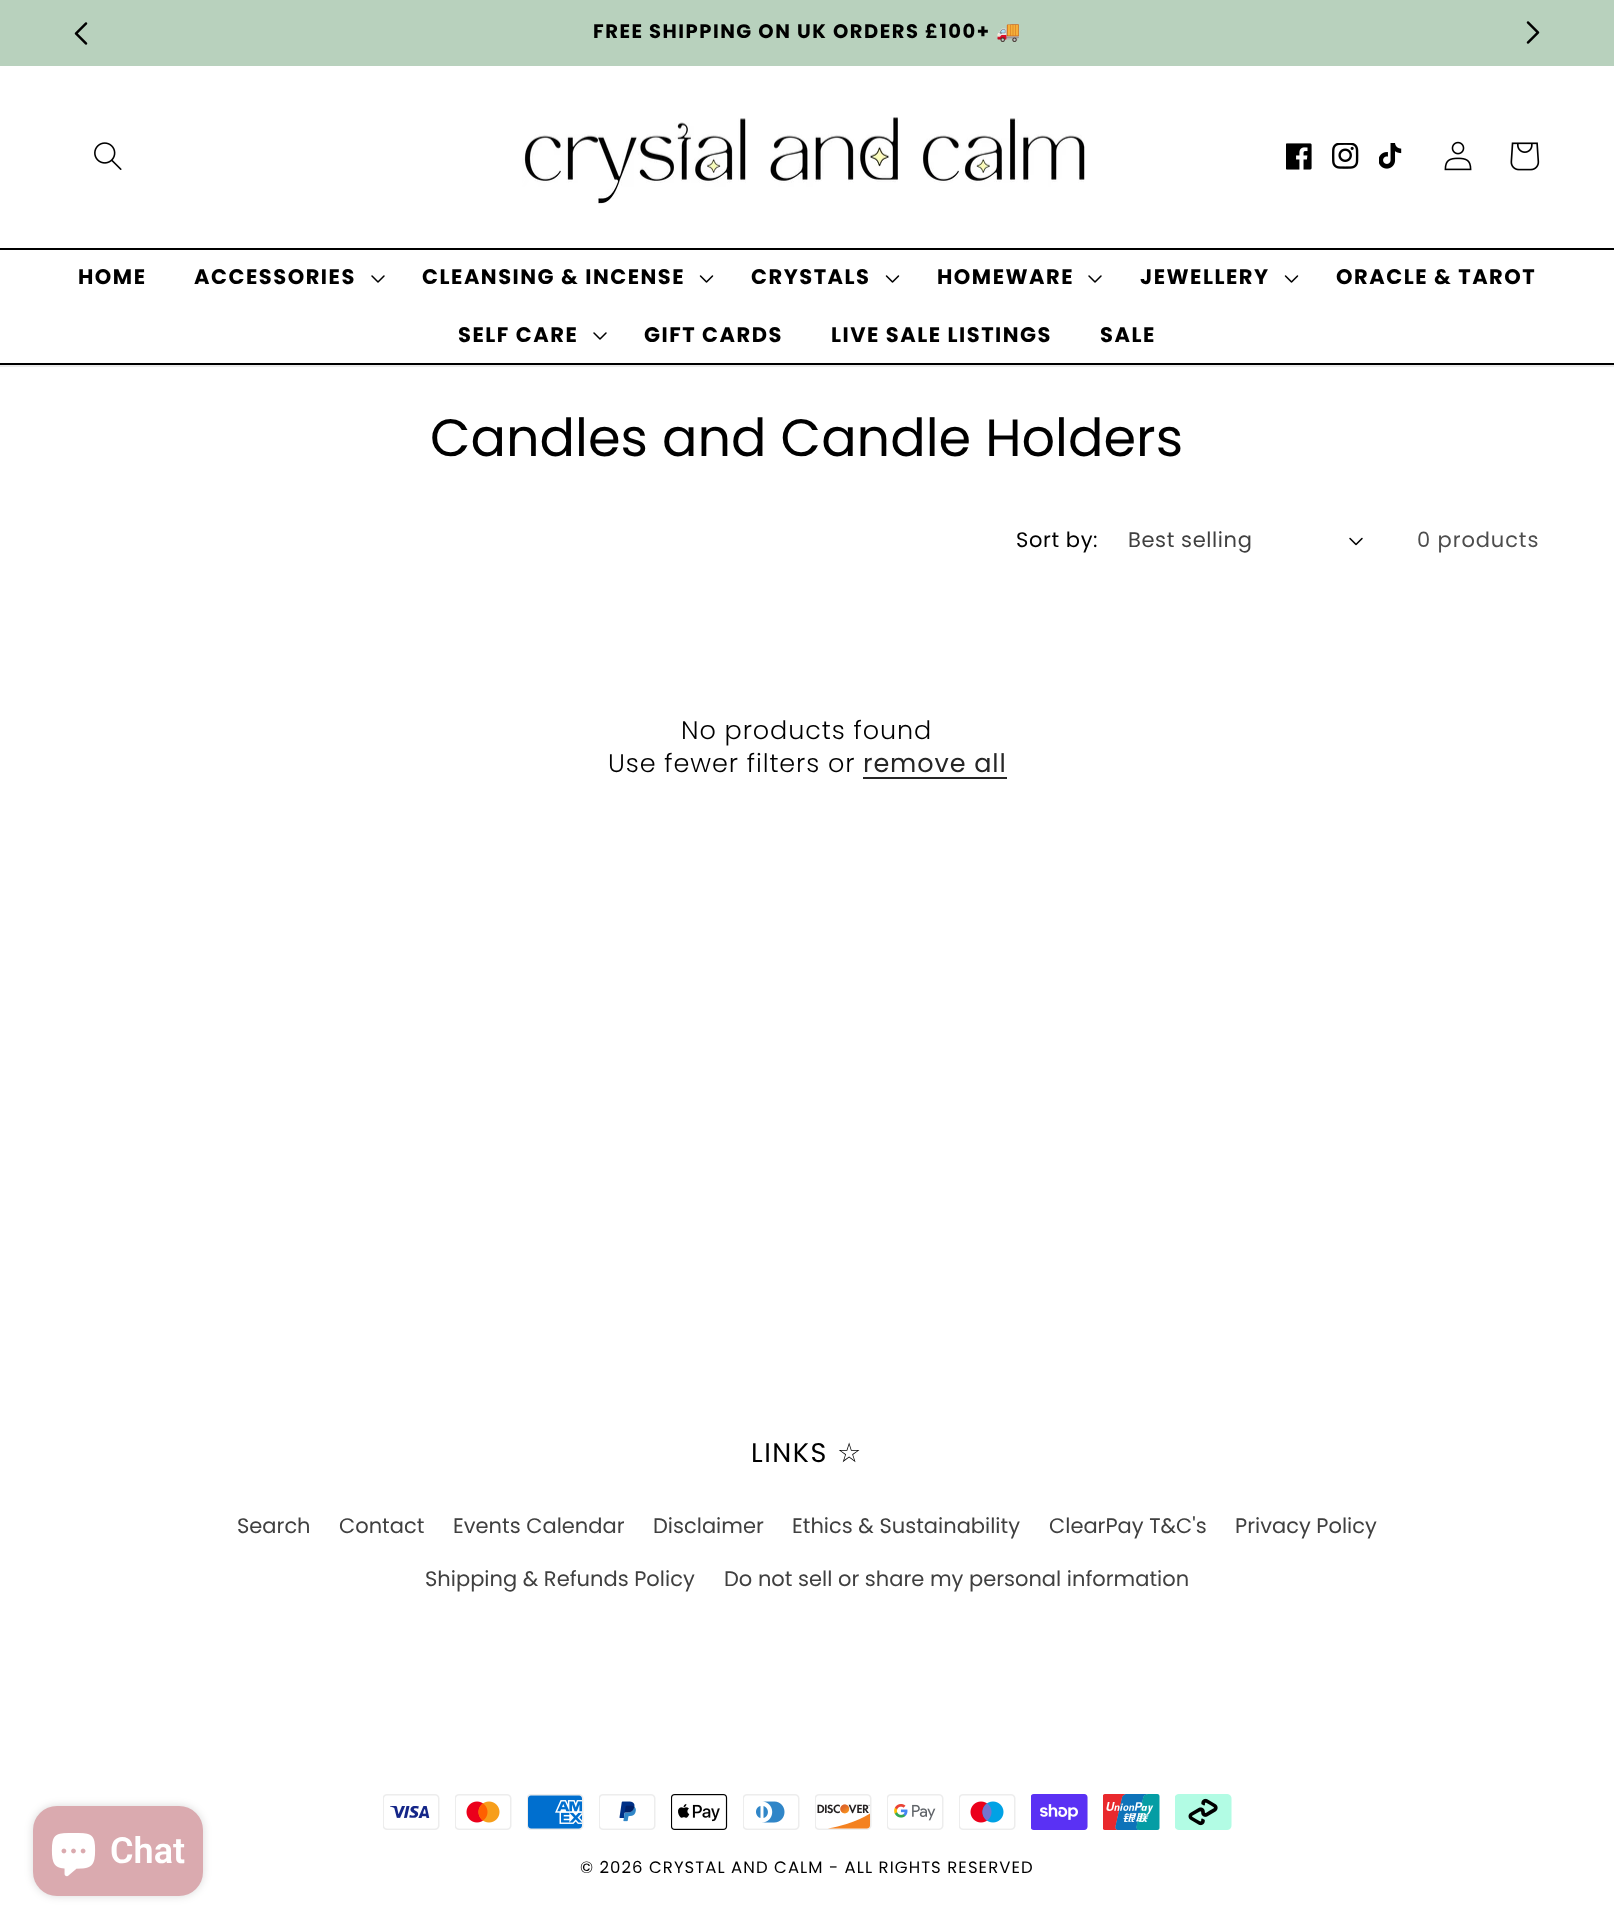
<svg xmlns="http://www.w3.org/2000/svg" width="1614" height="1927">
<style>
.a{font:bold 19.5px Poppins;letter-spacing:1.5px;fill:#000}
.b{font:bold 19.5px Noto Color Emoji;letter-spacing:1.5px;fill:#000}
.c{font:bold 21px Poppins;letter-spacing:1.5px;fill:#000}
.d{font:52.5px Poppins;fill:#000}
.e{font:21px Poppins;letter-spacing:0.6px;fill:#000}
.f{font:21px Poppins;letter-spacing:0.6px;fill:#404040}
.g{font:21px Poppins;letter-spacing:0.9px;fill:#4d4d4d}
.h{font:300 25.5px Poppins;letter-spacing:0.9px;fill:#000}
.i{font:25.5px Poppins;letter-spacing:0.9px;fill:#262626}
.j{font:600 36px Roboto;fill:#fff}
.k{font:27px Poppins;letter-spacing:1.5px;fill:#000}
.l{font:27px DejaVu Sans;letter-spacing:1.5px;fill:#000}
.m{font:21px Poppins;fill:#404040}
.n{font:16.5px Poppins;letter-spacing:1.05px;fill:#000}
</style>
<rect width="100%" height="100%" fill="#fff"/>
<path fill="#b8d1bd" d="M0 0h1614v66H0z"/>
<image href="1.png" x="74" y="22" width="14" height="23"/>
<image href="2.png" x="1526" y="21" width="14" height="23"/>
<path fill="#ebebeb" d="M0 365h1614v2H0z"/>
<image href="3.png" x="94" y="142" width="28" height="28"/>
<image href="4.png" x="522" y="117" width="563" height="87"/>
<image href="5.png" x="1286" y="143" width="26" height="27"/>
<image href="6.png" x="1332" y="143" width="27" height="26"/>
<image href="7.png" x="1379" y="143" width="23" height="26"/>
<image href="8.png" x="1444" y="141" width="28" height="30"/>
<image href="9.png" x="1510" y="142" width="30" height="29"/>
<path fill="#000" d="M0 248h1614v2H0z"/>
<path fill="#000" d="M0 363h1614v2H0z"/>
<image href="10.png" x="371" y="275" width="14" height="8"/>
<image href="11.png" x="699" y="275" width="15" height="8"/>
<image href="11.png" x="885" y="275" width="15" height="8"/>
<image href="10.png" x="1088" y="275" width="14" height="8"/>
<image href="11.png" x="1284" y="275" width="15" height="8"/>
<image href="10.png" x="593" y="332" width="14" height="8"/>
<image href="12.png" x="1349" y="537" width="14" height="9"/>
<path fill="#262626" d="M863 777h144v2H863z"/>
<rect fill="#00000026" filter="blur(4px)" x="33" y="1806" width="170" height="90" rx="24"/>
<rect fill="#daaaaf" x="33" y="1806" width="170" height="90" rx="24"/>
<image href="13.png" x="51" y="1833" width="45" height="44"/>
<image href="14.png" x="383" y="1794" width="57" height="36"/>
<image href="15.png" x="455" y="1794" width="57" height="36"/>
<image href="16.png" x="527" y="1794" width="57" height="36"/>
<image href="17.png" x="599" y="1794" width="57" height="36"/>
<image href="18.png" x="671" y="1794" width="57" height="36"/>
<image href="19.png" x="743" y="1794" width="57" height="36"/>
<image href="20.png" x="815" y="1794" width="57" height="36"/>
<image href="21.png" x="887" y="1794" width="57" height="36"/>
<image href="22.png" x="959" y="1794" width="57" height="36"/>
<image href="23.png" x="1031" y="1794" width="57" height="36"/>
<image href="24.png" x="1103" y="1794" width="57" height="36"/>
<image href="25.png" x="1175" y="1794" width="57" height="36"/>
<text class="a" x="593" y="38">FREE SHIPPING ON UK ORDERS £100+</text>
<text class="b" x="996" y="38">🚚</text>
<text class="c" x="78" y="284">HOME</text>
<text class="c" x="194" y="284">ACCESSORIES</text>
<text class="c" x="422" y="284">CLEANSING &amp; INCENSE</text>
<text class="c" x="751" y="284">CRYSTALS</text>
<text class="c" x="937" y="284">HOMEWARE</text>
<text class="c" x="1140" y="284">JEWELLERY</text>
<text class="c" x="1336" y="284">ORACLE &amp; TAROT</text>
<text class="c" x="458" y="342">SELF CARE</text>
<text class="c" x="644" y="342">GIFT CARDS</text>
<text class="c" x="831" y="342">LIVE SALE LISTINGS</text>
<text class="c" x="1100" y="342">SALE</text>
<text class="d" x="430" y="456">Candles and Candle Holders</text>
<text class="e" x="1016" y="547">Sort by:</text>
<text class="f" x="1128" y="547">Best selling</text>
<text class="g" x="1417" y="547">0 products</text>
<text class="h" x="681" y="739">No products found</text>
<text class="h" x="608" y="772">Use fewer filters or</text>
<text class="i" x="863" y="772">remove all</text>
<text class="j" x="110" y="1863">Chat</text>
<text class="k" x="751" y="1462">LINKS</text>
<text class="l" x="837" y="1462">☆</text>
<text class="m" x="237" y="1533">Search</text>
<text class="m" x="339" y="1533">Contact</text>
<text class="m" x="453" y="1533">Events Calendar</text>
<text class="m" x="653" y="1533">Disclaimer</text>
<text class="m" x="792" y="1533">Ethics &amp; Sustainability</text>
<text class="m" x="1049" y="1533">ClearPay T&amp;C's</text>
<text class="m" x="1235" y="1533">Privacy Policy</text>
<text class="m" x="425" y="1586">Shipping &amp; Refunds Policy</text>
<text class="m" x="724" y="1586">Do not sell or share my personal information</text>
<text class="n" x="580" y="1873">© 2026 CRYSTAL AND CALM</text>
<text class="n" x="829" y="1873">- ALL RIGHTS RESERVED</text>
</svg>
